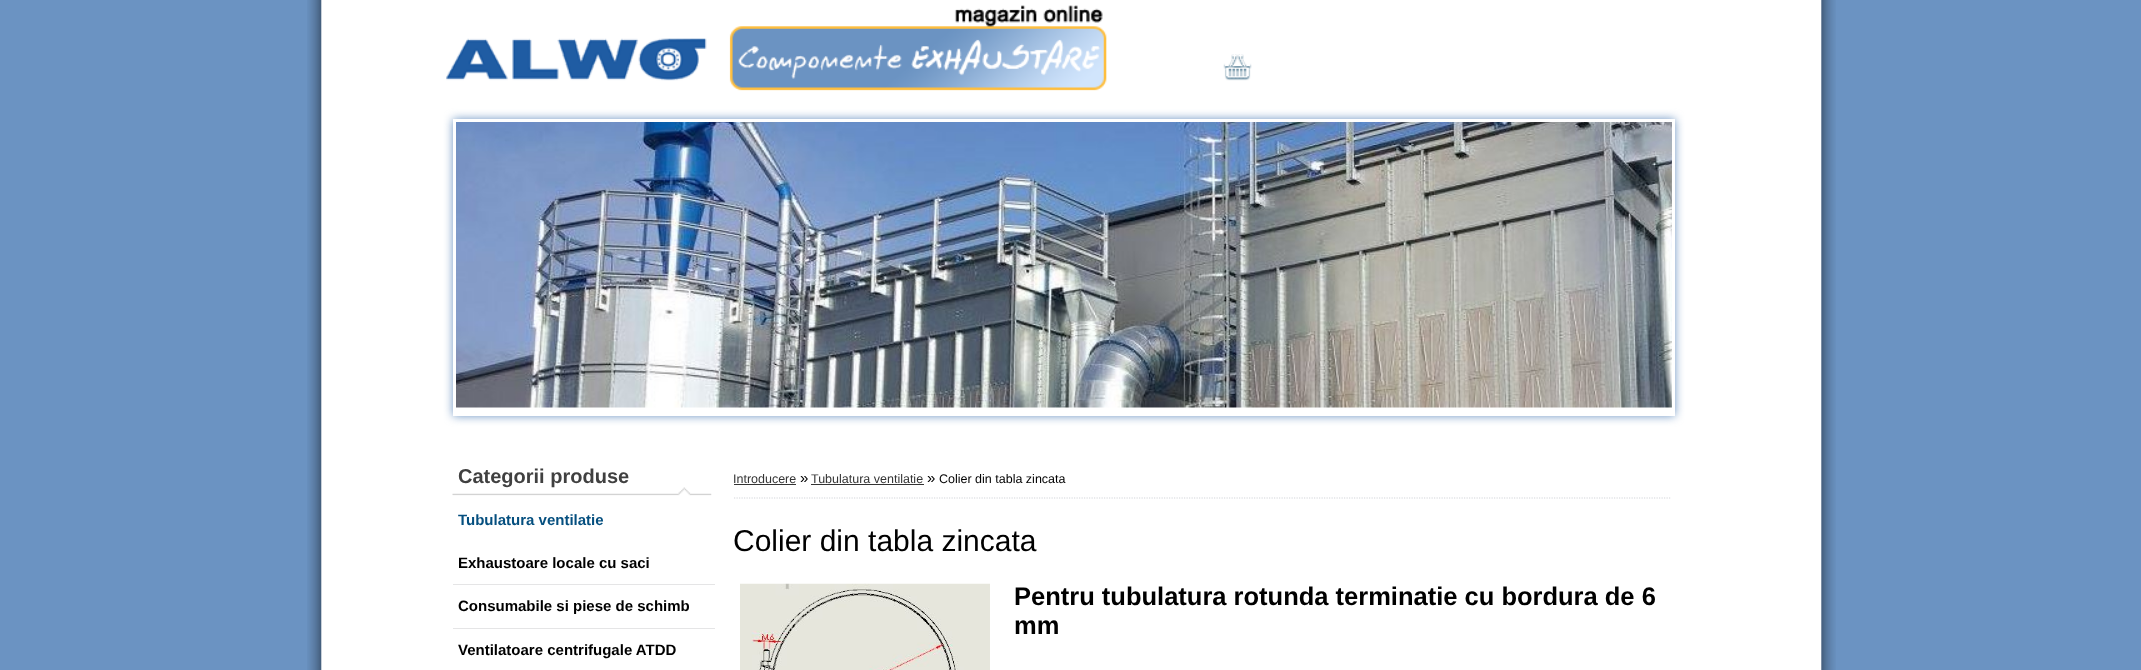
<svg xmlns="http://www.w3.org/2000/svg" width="2141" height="670">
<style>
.a{font:bold 20px Liberation Sans;fill:#404040}
.b{font:bold 15px Liberation Sans;fill:#054f7f}
.c{font:bold 15px Liberation Sans;fill:#000}
.d{font:12.5px Liberation Sans;fill:#343434}
.e{font:15px Liberation Sans;fill:#000}
.f{font:12.5px Liberation Sans;fill:#000}
.g{font:30px Liberation Sans;fill:#000}
.h{font:bold 25.5px Liberation Sans;fill:#000}
</style>
<defs>
<clipPath id="clip1"><path d="M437 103h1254v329h-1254zm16 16h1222v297h-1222z" clip-rule="evenodd"/></clipPath>
</defs>
<rect width="100%" height="100%" fill="#6b93c2"/>
<image href="1.png" x="307" y="0" width="1529" height="670"/>
<g clip-path="url(#clip1)">
<path fill="#6b93c2" filter="blur(5px)" d="M453 119h1222v297H453z"/>
</g>
<image href="2.png" x="456" y="122" width="1216" height="286"/>
<image href="3.png" x="446" y="5" width="661" height="86"/>
<image href="4.png" x="1223" y="54" width="29" height="27"/>
<image href="5.png" x="452" y="487" width="260" height="9"/>
<path fill="#e5e5e6" d="M453 584h262v1H453z"/>
<path fill="#e5e5e6" d="M453 628h262v1H453z"/>
<path fill="none" stroke="#d3d5da" stroke-width="1.2" stroke-dasharray="1.25 1.25" d="M734 498h937"/>
<path fill="#343434" d="M734 484h62v1H734z"/>
<path fill="#343434" d="M811 484h113v1H811z"/>
<image href="6.png" x="740" y="583" width="250" height="87"/>
<text class="a" x="458" y="483">Categorii produse</text>
<text class="b" x="458" y="525">Tubulatura ventilatie</text>
<text class="c" x="458" y="568">Exhaustoare locale cu saci</text>
<text class="c" x="458" y="611">Consumabile si piese de schimb</text>
<text class="c" x="458" y="655">Ventilatoare centrifugale ATDD</text>
<text class="d" x="733" y="483">Introducere</text>
<text class="e" x="800" y="483">»</text>
<text class="d" x="811" y="483">Tubulatura ventilatie</text>
<text class="e" x="927" y="483">»</text>
<text class="f" x="939" y="483">Colier din tabla zincata</text>
<text class="g" x="733" y="551">Colier din tabla zincata</text>
<text class="h" x="1014" y="605">Pentru tubulatura rotunda terminatie cu bordura de 6</text>
<text class="h" x="1014" y="634">mm</text>
</svg>
